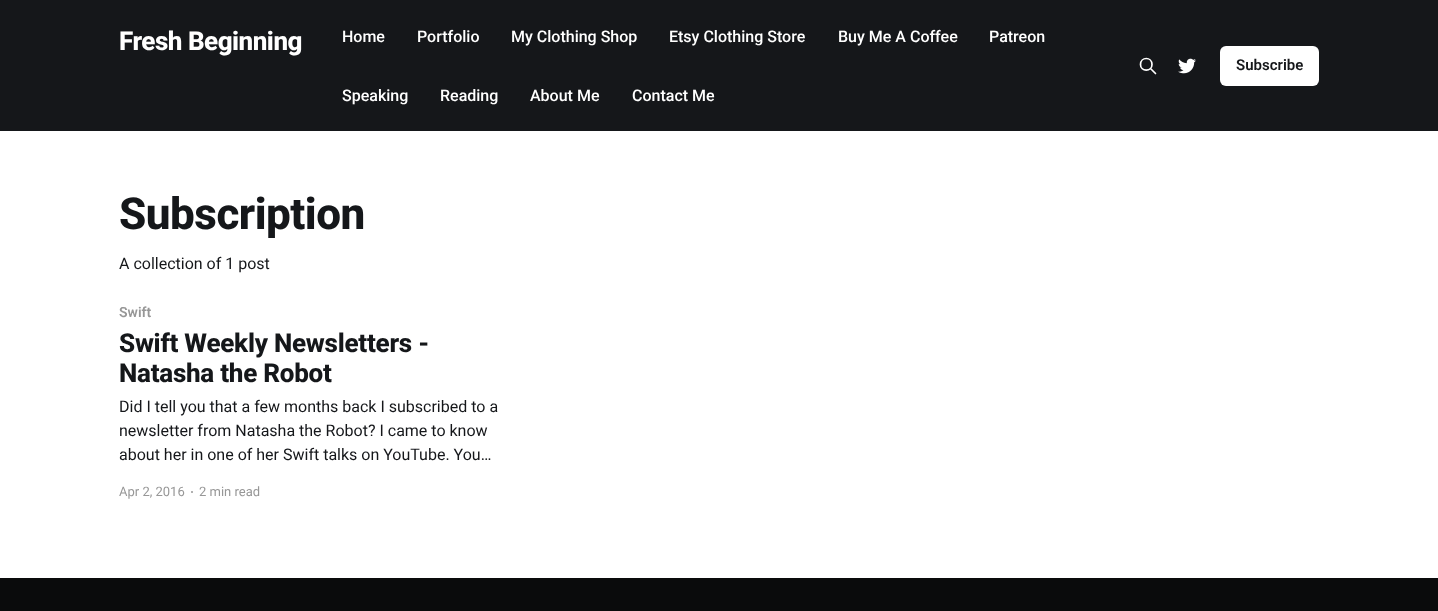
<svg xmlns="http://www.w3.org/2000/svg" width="1438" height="611">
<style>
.a{font:800 26px Roboto;letter-spacing:-0.5px;fill:#fff}
.b{font:500 16px Roboto;fill:#fff}
.c{font:600 15px Roboto;fill:#15171a}
.d{font:800 44px Roboto;letter-spacing:-0.5px;fill:#15171a}
.e{font:16px Roboto;fill:#15171a}
.f{font:600 14px Roboto;fill:#979797}
.g{font:800 26px Roboto;letter-spacing:-0.25px;fill:#15171a}
.h{font:13px Roboto;fill:#979797}
</style>
<rect width="100%" height="100%" fill="#fff"/>
<path fill="#15171a" d="M0 0h1438v131H0z"/>
<path fill="none" stroke="#fff" stroke-width="1.7" stroke-linecap="round" stroke-linejoin="round" d="M1155.5 73.5l-5-5m1.5-4c0 7.5-11.5 7.5-11.5 0c0-8 11.5-8 11.5 0z"/>
<image href="1.png" x="1178" y="58" width="18" height="16"/>
<rect fill="#fff" x="1220" y="46" width="99" height="40" rx="6"/>
<circle fill="#979797" cx="192" cy="492" r="1"/>
<path fill="#0a0b0c" d="M0 578h1438v33H0z"/>
<text class="a" x="119" y="50">Fresh Beginning</text>
<text class="b" x="342" y="42">Home</text>
<text class="b" x="417" y="42">Portfolio</text>
<text class="b" x="511" y="42">My Clothing Shop</text>
<text class="b" x="669" y="42">Etsy Clothing Store</text>
<text class="b" x="838" y="42">Buy Me A Coffee</text>
<text class="b" x="989" y="42">Patreon</text>
<text class="b" x="342" y="101">Speaking</text>
<text class="b" x="440" y="101">Reading</text>
<text class="b" x="530" y="101">About Me</text>
<text class="b" x="632" y="101">Contact Me</text>
<text class="c" x="1236" y="70">Subscribe</text>
<text class="d" x="119" y="229">Subscription</text>
<text class="e" x="119" y="269">A collection of 1 post</text>
<text class="f" x="119" y="317">Swift</text>
<text class="g" x="119" y="352">Swift Weekly Newsletters -</text>
<text class="g" x="119" y="382">Natasha the Robot</text>
<text class="e" x="119" y="412">Did I tell you that a few months back I subscribed to a</text>
<text class="e" x="119" y="436">newsletter from Natasha the Robot? I came to know</text>
<text class="e" x="119" y="460">about her in one of her Swift talks on YouTube. You…</text>
<text class="h" x="119" y="496">Apr 2, 2016</text>
<text class="h" x="199" y="496">2 min read</text>
</svg>
